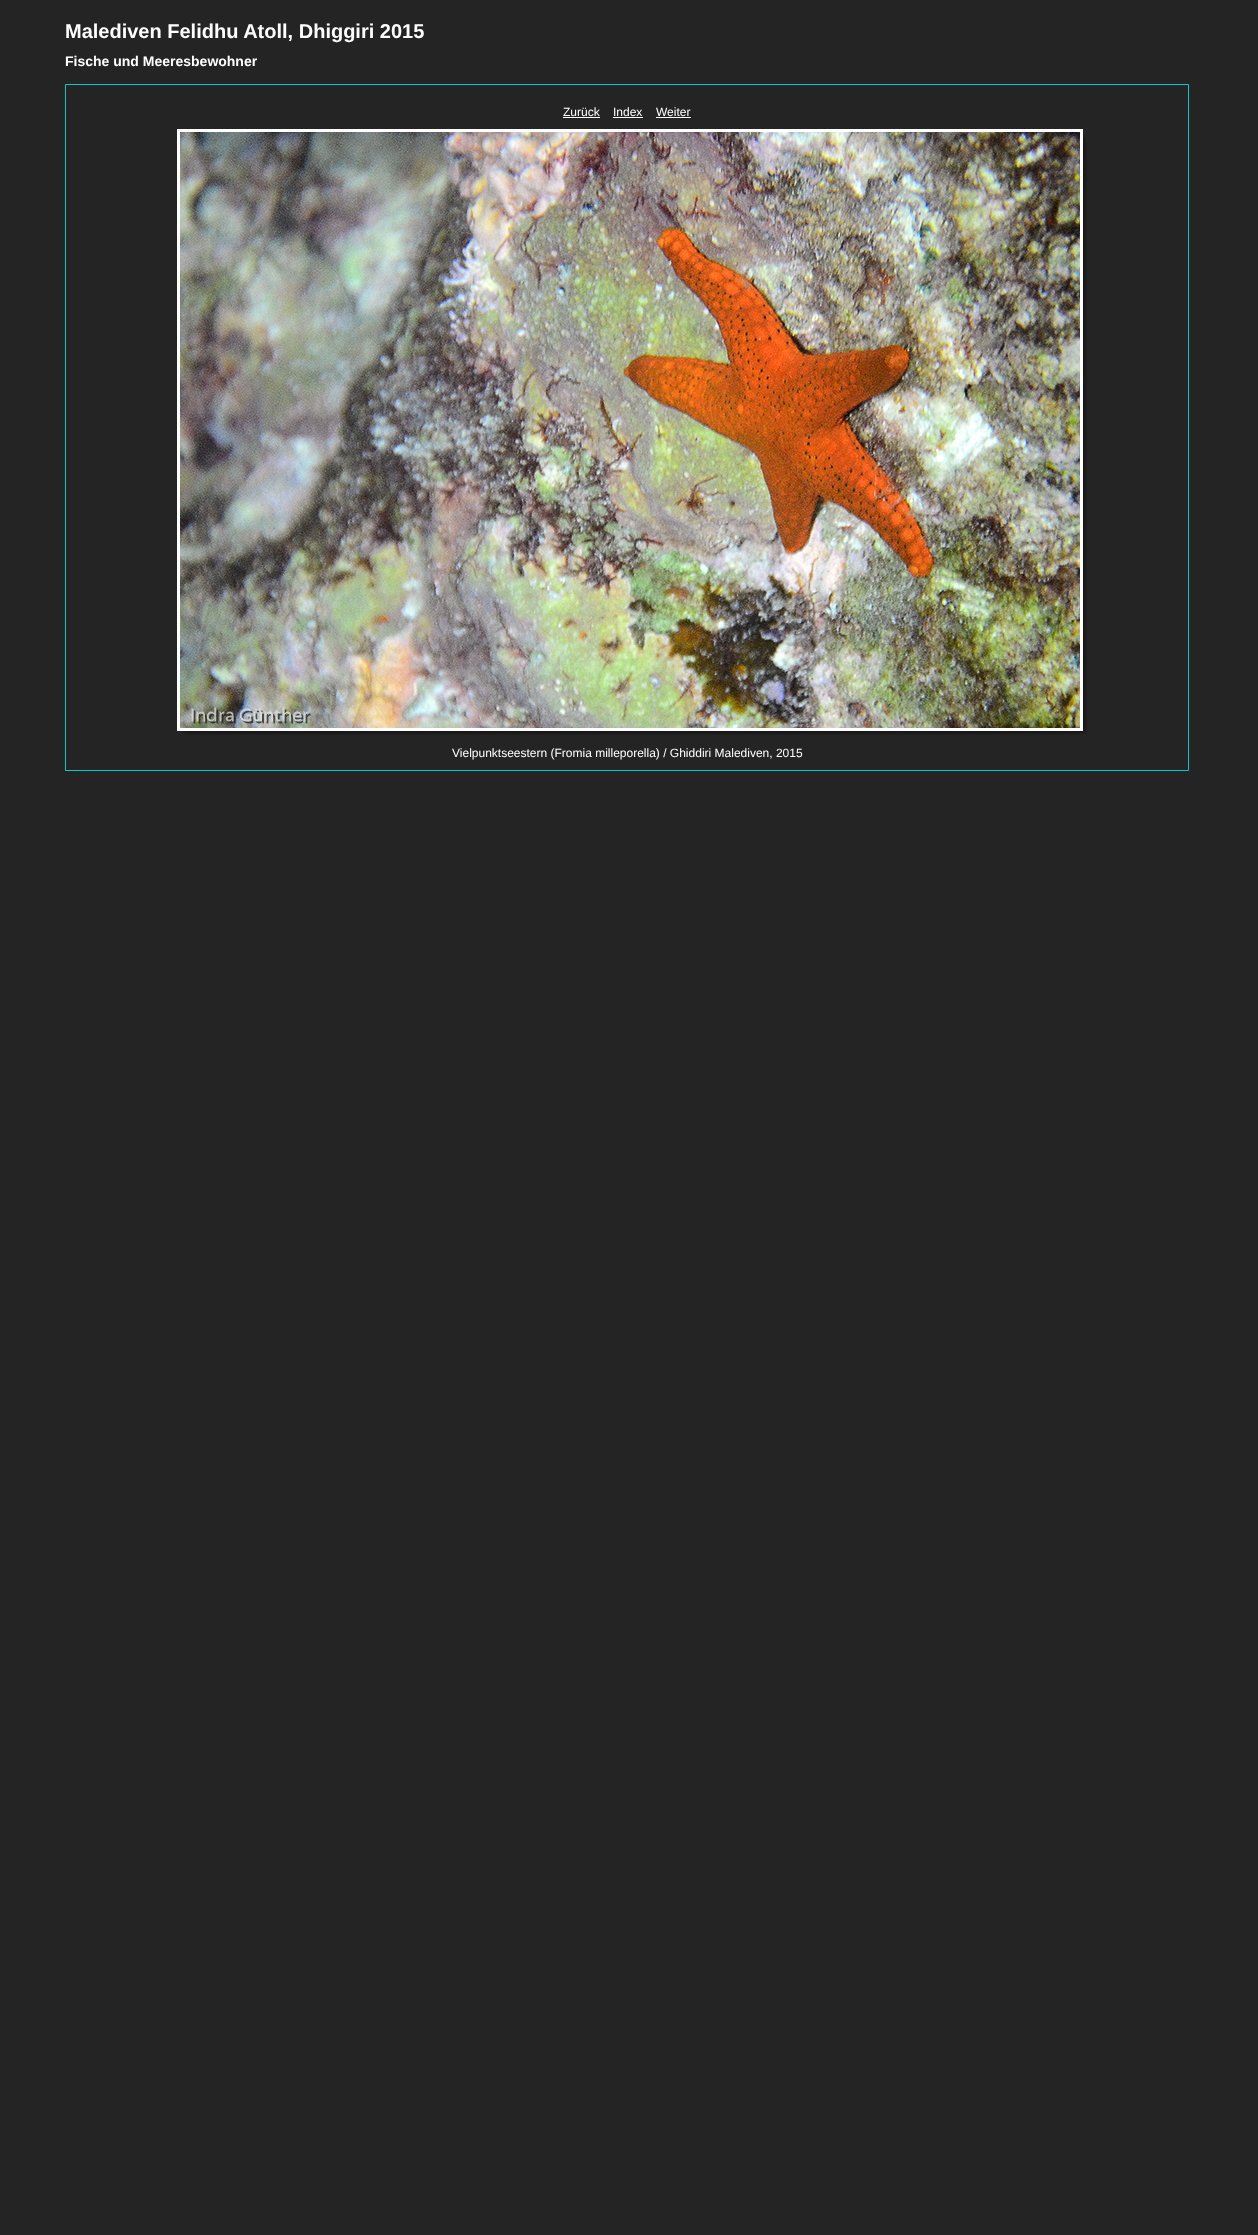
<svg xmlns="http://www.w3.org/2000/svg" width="1258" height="2235">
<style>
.a{font:bold 20px Liberation Sans;fill:#fff}
.b{font:bold 14px Liberation Sans;fill:#fff}
.c{font:12px Liberation Sans;fill:#fff}
</style>
<rect width="100%" height="100%" fill="#242424"/>
<path fill="none" stroke="#0cc" d="M65.5 84.5h1123v686H65.5z"/>
<path fill="#fff" d="M563 117h37v1H563z"/>
<path fill="#fff" d="M613 117h30v1H613z"/>
<path fill="#fff" d="M656 117h35v1H656z"/>
<image href="1.png" x="187" y="142" width="900" height="593"/>
<path fill="none" stroke="#fff" stroke-width="3" d="M178.5 130.5h903v599H178.5z"/>
<image href="2.png" x="180" y="132" width="900" height="596"/>
<image href="3.png" x="1083" y="137" width="3" height="5"/>
<image href="4.png" x="182" y="731" width="5" height="3"/>
<text class="a" x="65" y="38">Malediven Felidhu Atoll, Dhiggiri 2015</text>
<text class="b" x="65" y="66">Fische und Meeresbewohner</text>
<text class="c" x="563" y="116">Zurück</text>
<text class="c" x="613" y="116">Index</text>
<text class="c" x="656" y="116">Weiter</text>
<text class="c" x="452" y="757">Vielpunktseestern (Fromia milleporella) / Ghiddiri Malediven, 2015</text>
</svg>
